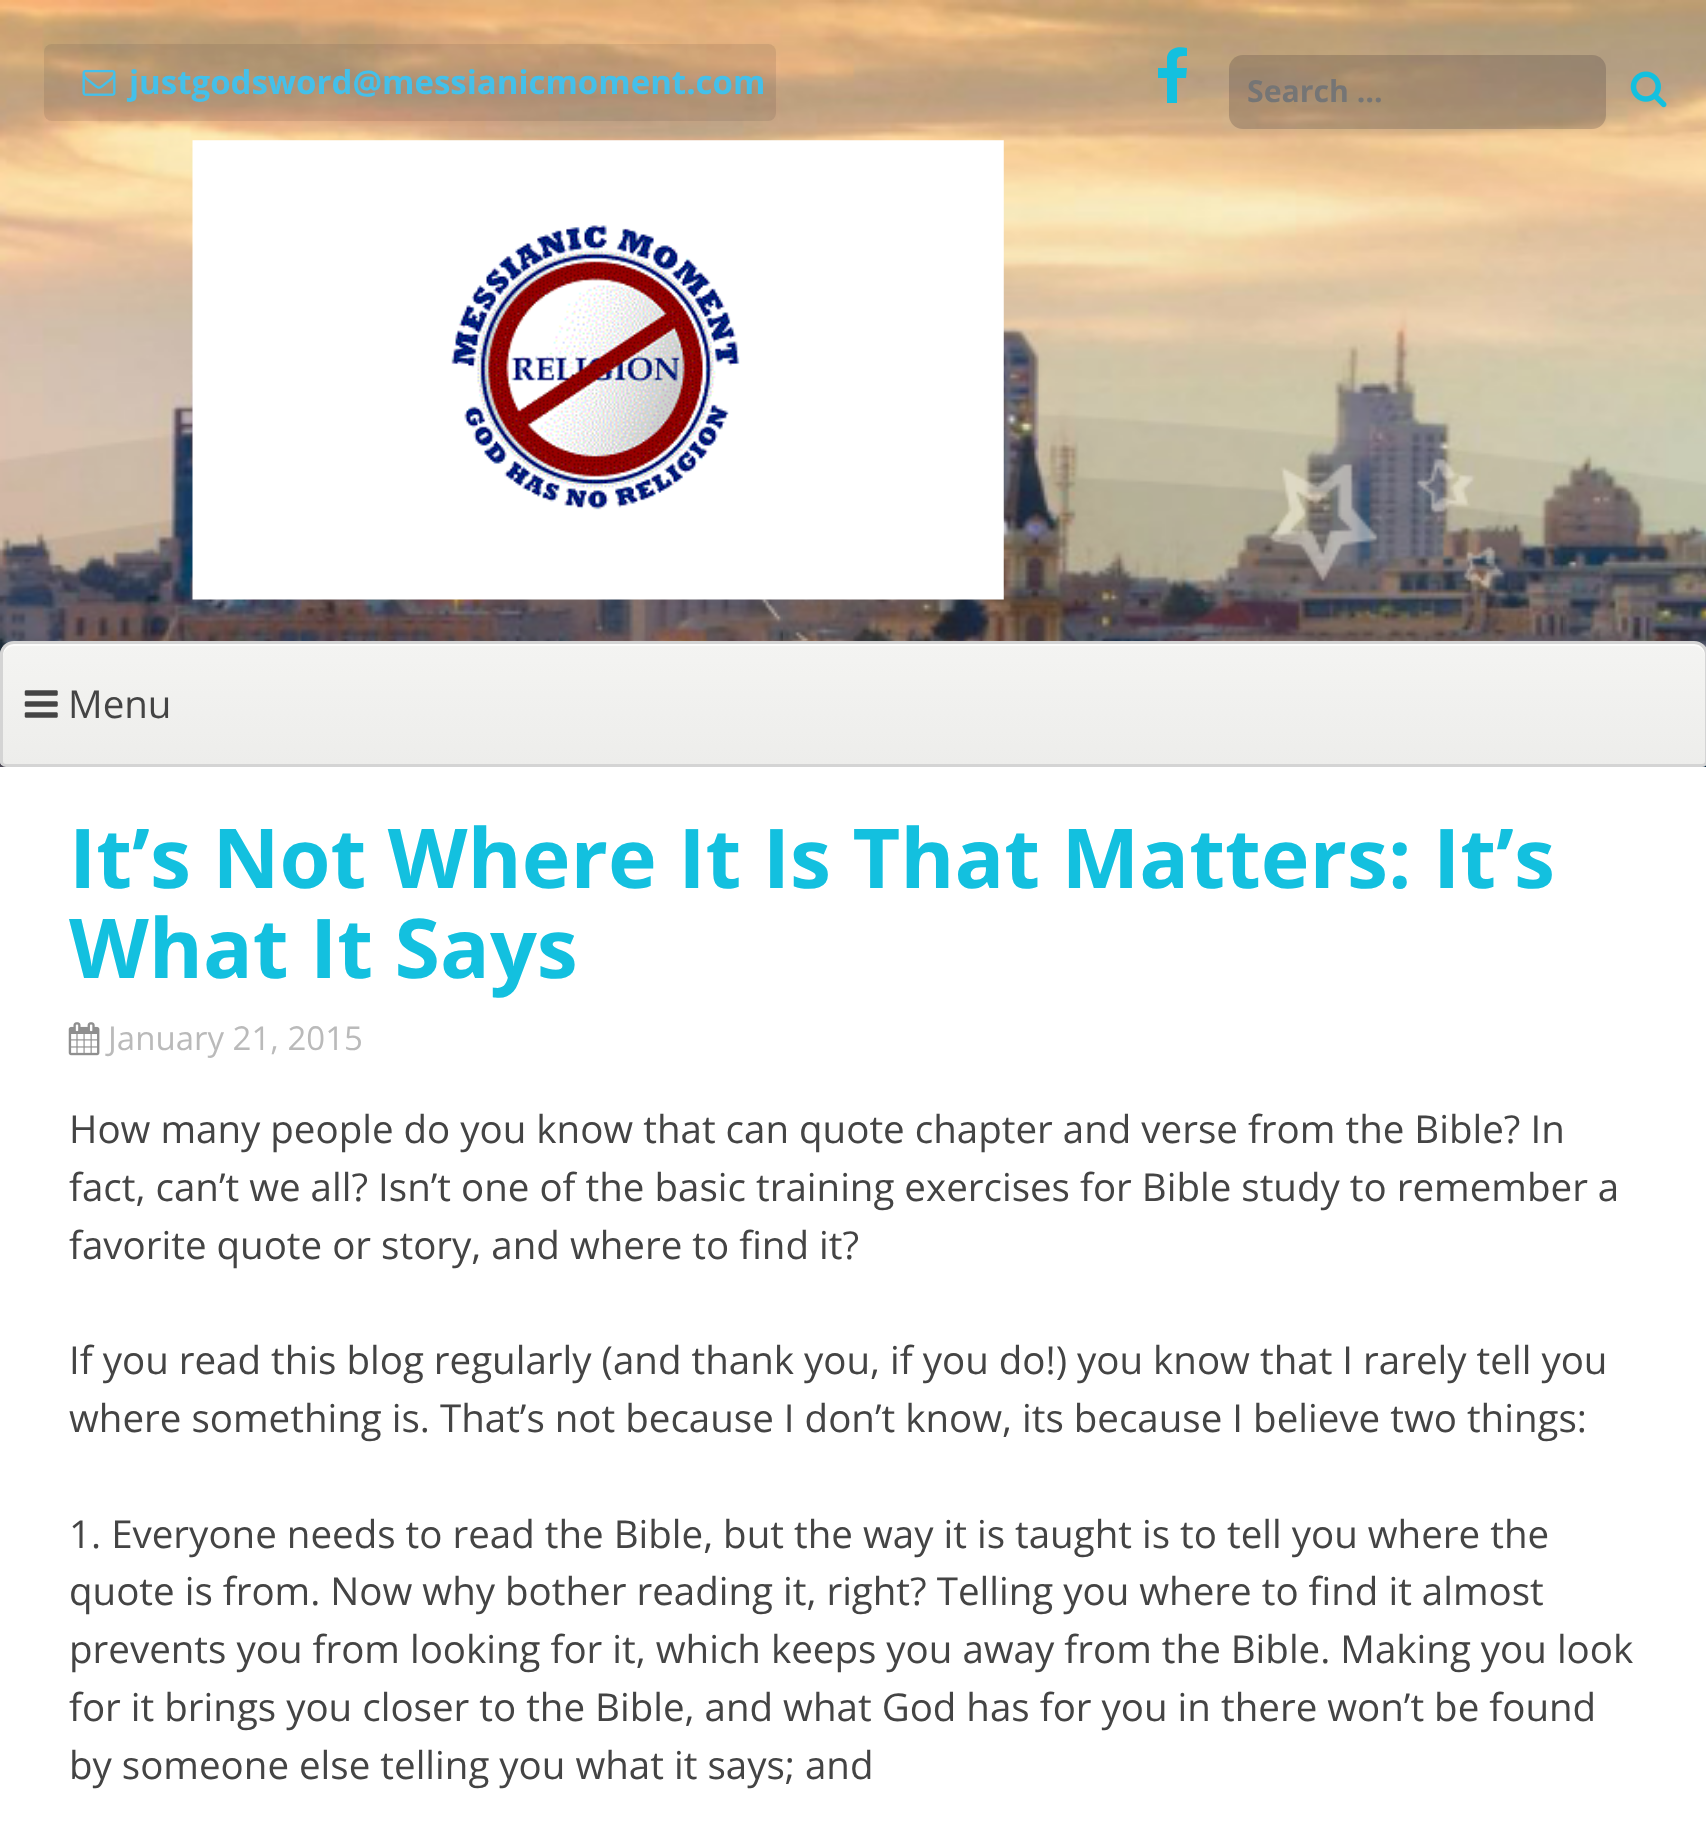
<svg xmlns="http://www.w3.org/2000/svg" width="1706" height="1841">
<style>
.a{font:bold 33px Open Sans;fill:#44c0ea}
.b{font:bold 30.25px Open Sans;fill:#757575}
.c{font:38.5px Open Sans;fill:#444}
.d{font:bold 82.5px Open Sans;fill:#13c0df}
.e{font:33px Open Sans;fill:#bababa}
</style>
<defs>
<clipPath id="clip1"><path d="M14 641h1680c7.5 0 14 6.5 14 14v106c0 3.5-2.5 6-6 6h-1696c-3.5 0-6-2.5-6-6v-106c0-7.5 6.5-14 14-14z"/></clipPath>
<linearGradient id="g1" gradientUnits="userSpaceOnUse" x1="854" y1="643" x2="854" y2="765"><stop offset="0" stop-color="#f4f4f2"/><stop offset="1" stop-color="#ededeb"/></linearGradient>
</defs>
<rect width="100%" height="100%" fill="#fff"/>
<image href="1.png" x="0" y="0" width="1706" height="767"/>
<image href="2.png" x="0" y="412" width="1706" height="229"/>
<rect fill="#2720271a" x="44" y="44" width="732" height="77" rx="8"/>
<image href="3.png" x="82" y="69" width="34" height="27"/>
<path fill="#13c0df" d="M1187 48v8c-11 0-10 1-10 12h10l-1 10h-9v25h-10v-25h-9v-10h9v-11c2-10 12-11 20-9z"/>
<rect fill="#27202733" x="1229" y="55" width="377" height="74" rx="14"/>
<image href="4.png" x="1630" y="71" width="37" height="37"/>
<image href="5.png" x="192" y="140" width="812" height="460"/>
<g clip-path="url(#clip1)">
<path fill="url(#g1)" d="M0 644h1706v121H0z"/>
</g>
<path fill="#fdfdfc" d="M14 646h1680c6 0 11 5 11 11v-2c0-6-5-11-11-11h-1680c-6 0-11 5-11 11v2c0-6 5-11 11-11z"/>
<path fill="none" stroke="#d4d4d4" stroke-width="3" d="M14 642.5h1680c7 0 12.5 5.5 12.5 12.5v106c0 2.5-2 4.5-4.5 4.5h-1696c-2.5 0-4.5-2-4.5-4.5v-106c0-7 5.5-12.5 12.5-12.5z"/>
<image href="6.png" x="24" y="690" width="34" height="28"/>
<image href="7.png" x="68" y="1022" width="32" height="34"/>
<text class="a" x="129" y="94">justgodsword@messianicmoment.com</text>
<text class="b" x="1247" y="102">Search …</text>
<text class="c" x="68" y="718">Menu</text>
<text class="d" x="69" y="888">It’s Not Where It Is That Matters: It’s</text>
<text class="d" x="69" y="978">What It Says</text>
<text class="e" x="108" y="1050">January 21, 2015</text>
<text class="c" x="69" y="1143">How many people do you know that can quote chapter and verse from the Bible? In</text>
<text class="c" x="69" y="1201">fact, can’t we all? Isn’t one of the basic training exercises for Bible study to remember a</text>
<text class="c" x="69" y="1259">favorite quote or story, and where to find it?</text>
<text class="c" x="69" y="1374">If you read this blog regularly (and thank you, if you do!) you know that I rarely tell you</text>
<text class="c" x="69" y="1432">where something is. That’s not because I don’t know, its because I believe two things:</text>
<text class="c" x="69" y="1548">1. Everyone needs to read the Bible, but the way it is taught is to tell you where the</text>
<text class="c" x="69" y="1605">quote is from. Now why bother reading it, right? Telling you where to find it almost</text>
<text class="c" x="69" y="1663">prevents you from looking for it, which keeps you away from the Bible. Making you look</text>
<text class="c" x="69" y="1721">for it brings you closer to the Bible, and what God has for you in there won’t be found</text>
<text class="c" x="69" y="1779">by someone else telling you what it says; and</text>
</svg>
